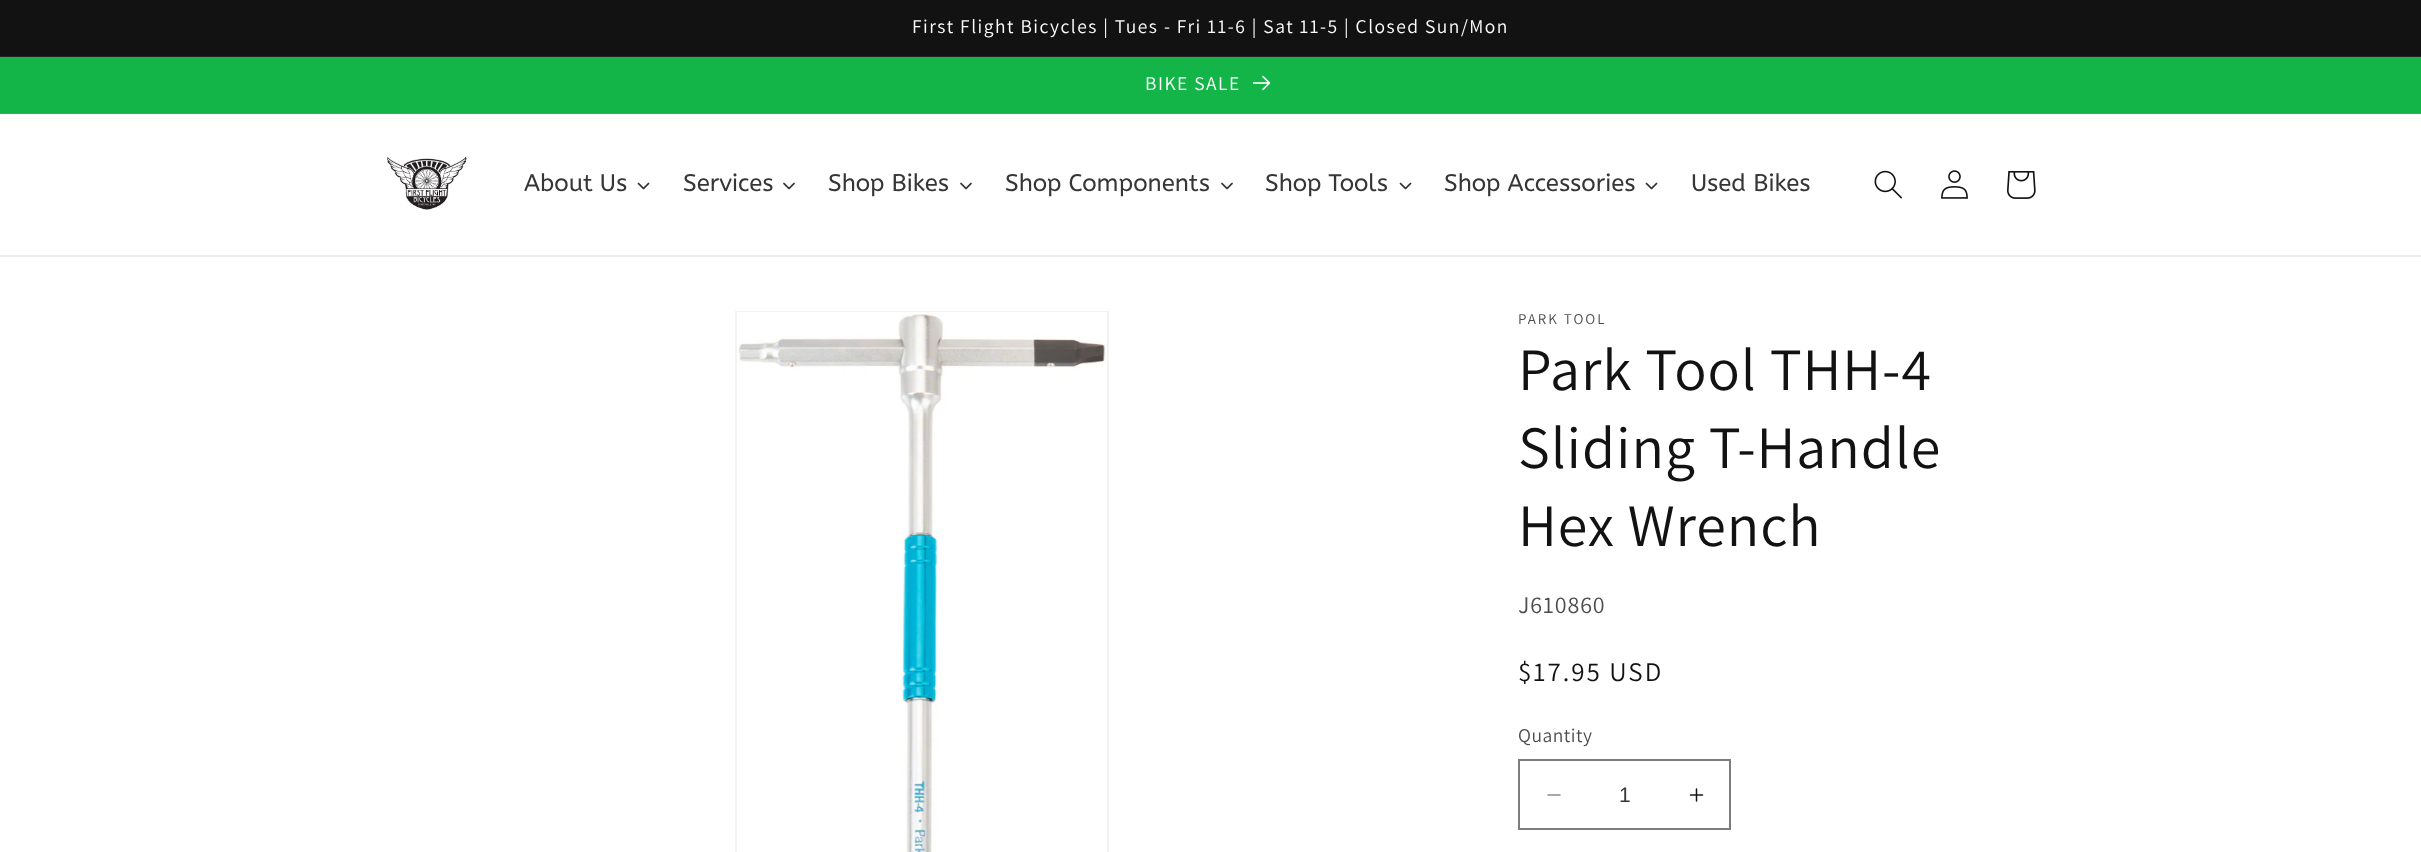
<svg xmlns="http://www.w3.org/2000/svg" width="2421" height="852">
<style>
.a{font:19.5px Assistant;letter-spacing:1.5px;fill:#fff}
.b{font:24px ABeeZee;fill:#363636}
.c{font:15px Assistant;letter-spacing:2px;fill:#4d4d4d}
.d{font:60px Assistant;letter-spacing:0.9px;fill:#121212}
.e{font:24px Assistant;letter-spacing:0.9px;fill:#4d4d4d}
.f{font:27px Assistant;letter-spacing:2px;fill:#121212}
.g{font:19.5px Assistant;letter-spacing:0.5px;fill:#4d4d4d}
.h{font:21px Liberation Sans;fill:#363636}
</style>
<rect width="100%" height="100%" fill="#fff"/>
<path fill="#121212" d="M0 0h2421v56H0z"/>
<path fill="#252525" d="M0 56h2421v1H0z"/>
<path fill="#13b448" d="M0 57h2421v56H0z"/>
<path fill="#26ba57" d="M0 113h2421v1H0z"/>
<image href="1.png" x="1253" y="75" width="18" height="16"/>
<path fill="#ececec" d="M0 255h2421v2H0z"/>
<image href="2.png" x="387" y="156" width="80" height="54"/>
<image href="3.png" x="637" y="182" width="13" height="8"/>
<image href="4.png" x="783" y="182" width="12" height="8"/>
<image href="4.png" x="960" y="182" width="12" height="8"/>
<image href="4.png" x="1221" y="182" width="12" height="8"/>
<image href="3.png" x="1399" y="182" width="13" height="8"/>
<image href="3.png" x="1645" y="182" width="13" height="8"/>
<image href="5.png" x="1874" y="170" width="28" height="29"/>
<image href="6.png" x="1941" y="170" width="27" height="29"/>
<image href="7.png" x="2007" y="171" width="29" height="28"/>
<path fill="none" stroke="#f3f3f3" stroke-width="2" d="M736 312h372v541H736z"/>
<image href="8.png" x="737" y="312" width="370" height="540"/>
<image href="9.png" x="1547" y="794" width="14" height="2"/>
<image href="10.png" x="1689" y="788" width="15" height="14"/>
<path fill="none" stroke="#7d7d7d" stroke-width="2" d="M1519 760h211v69H1519z"/>
<text class="a" x="912" y="33">First Flight Bicycles | Tues - Fri 11-6 | Sat 11-5 | Closed Sun/Mon</text>
<text class="a" x="1145" y="90">BIKE SALE</text>
<text class="b" x="524" y="191">About Us</text>
<text class="b" x="683" y="191">Services</text>
<text class="b" x="828" y="191">Shop Bikes</text>
<text class="b" x="1005" y="191">Shop Components</text>
<text class="b" x="1265" y="191">Shop Tools</text>
<text class="b" x="1444" y="191">Shop Accessories</text>
<text class="b" x="1691" y="191">Used Bikes</text>
<text class="c" x="1518" y="324">PARK TOOL</text>
<text class="d" x="1518" y="390">Park Tool THH-4</text>
<text class="d" x="1518" y="468">Sliding T-Handle</text>
<text class="d" x="1518" y="546">Hex Wrench</text>
<text class="e" x="1518" y="613">J610860</text>
<text class="f" x="1518" y="681">$17.95 USD</text>
<text class="g" x="1518" y="742">Quantity</text>
<text class="h" x="1619" y="802">1</text>
</svg>
